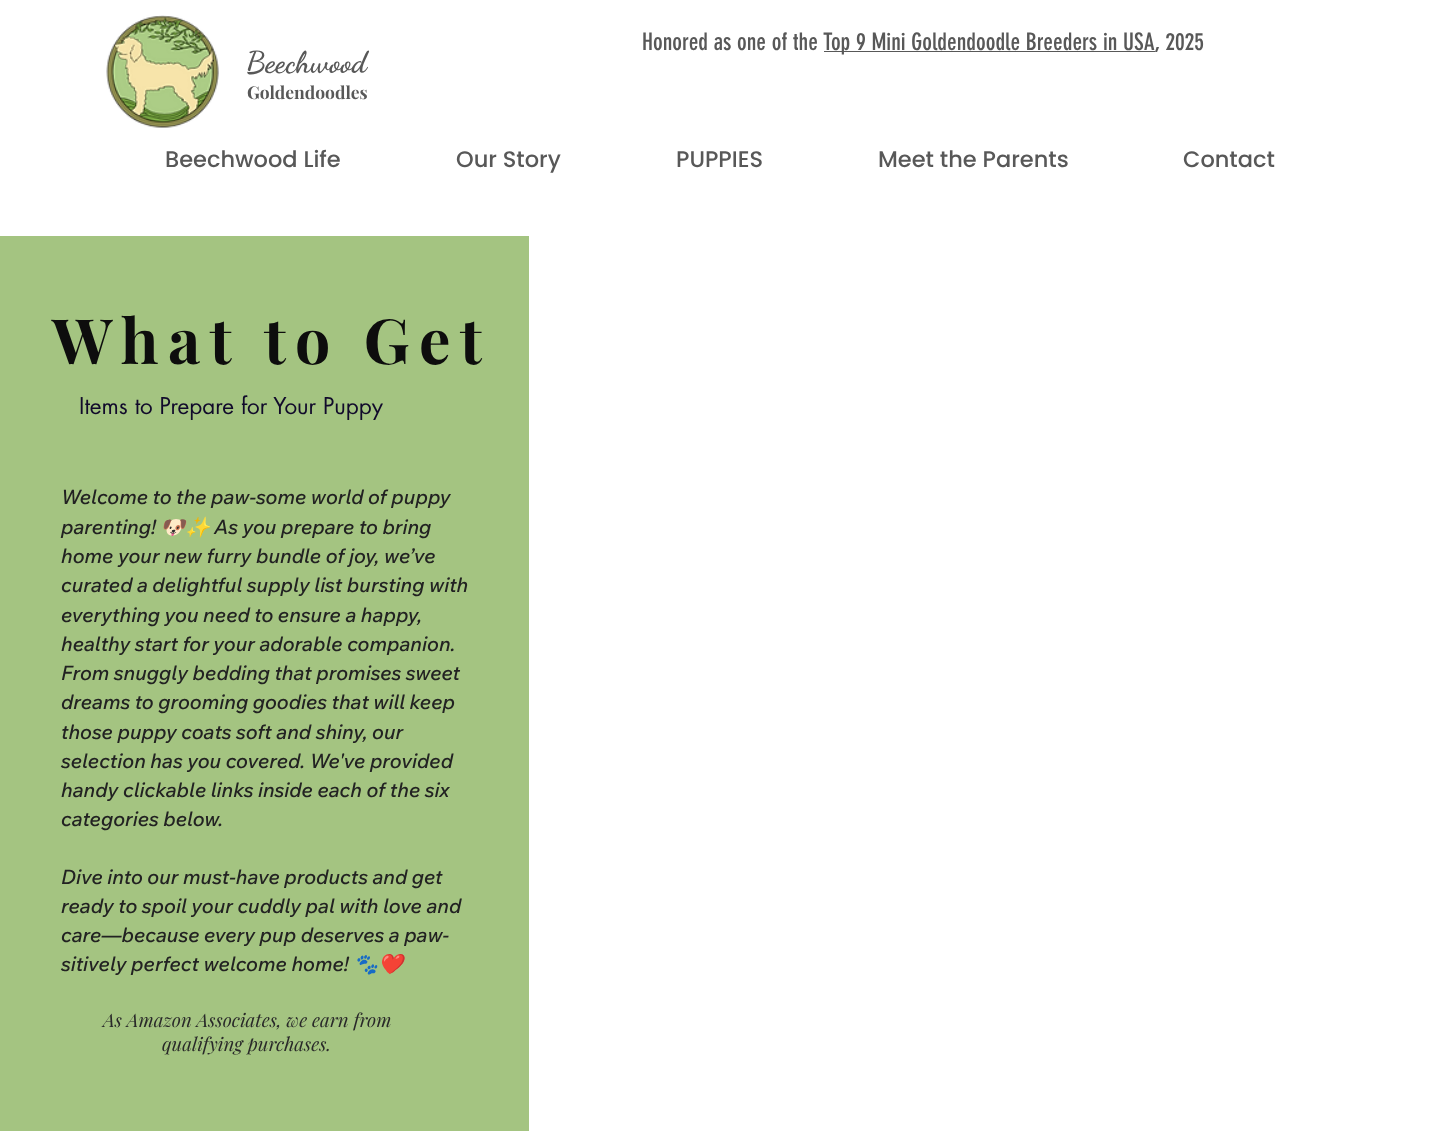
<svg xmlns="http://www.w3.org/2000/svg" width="1431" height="1131">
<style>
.a{font:23.75px 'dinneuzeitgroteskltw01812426';fill:#585858}
.b{font:bold 30px Dancing Script;fill:#585858}
.c{font:bold 17.5px Playfair Display;fill:#585858}
.d{font:500 22.5px Poppins;fill:#585858}
.e{font:bold 62.5px Playfair Display;letter-spacing:9.4px;fill:#0d0d0d}
.f{font:22.5px futura;fill:#110a2b}
.g{font:italic 500 20px Wix Madefor Text;fill:#222}
.h{font:italic 20px Noto Color Emoji;fill:#222}
.i{font:italic 18.75px Playfair Display;fill:#292929}
</style>
<rect width="100%" height="100%" fill="#fff"/>
<image href="1.png" x="106" y="15" width="113" height="113"/>
<path fill="#585858" d="M824 51h331v1H824z"/>
<path fill="#a4c481" d="M0 236h529v895H0z"/>
<text class="a" x="642" y="50">Honored as one of the</text>
<text class="a" x="823" y="50">Top 9 Mini Goldendoodle Breeders in USA, 2025</text>
<text class="b" x="246" y="72">Beechwood</text>
<text class="c" x="247" y="99">Goldendoodles</text>
<text class="d" x="165" y="167">Beechwood Life</text>
<text class="d" x="456" y="167">Our Story</text>
<text class="d" x="676" y="167">PUPPIES</text>
<text class="d" x="878" y="167">Meet the Parents</text>
<text class="d" x="1183" y="167">Contact</text>
<text class="e" x="52" y="364">What to Get</text>
<text class="f" x="79" y="414">Items to Prepare for Your Puppy</text>
<text class="g" x="61" y="504">Welcome to the paw-some world of puppy</text>
<text class="g" x="61" y="534">parenting!</text>
<text class="h" x="160" y="534">🐶✨</text>
<text class="g" x="214" y="534">As you prepare to bring</text>
<text class="g" x="61" y="563">home your new furry bundle of joy, we’ve</text>
<text class="g" x="61" y="592">curated a delightful supply list bursting with</text>
<text class="g" x="61" y="622">everything you need to ensure a happy,</text>
<text class="g" x="61" y="651">healthy start for your adorable companion.</text>
<text class="g" x="61" y="680">From snuggly bedding that promises sweet</text>
<text class="g" x="61" y="709">dreams to grooming goodies that will keep</text>
<text class="g" x="61" y="739">those puppy coats soft and shiny, our</text>
<text class="g" x="61" y="768">selection has you covered. We've provided</text>
<text class="g" x="61" y="797">handy clickable links inside each of the six</text>
<text class="g" x="61" y="826">categories below.</text>
<text class="g" x="61" y="884">Dive into our must-have products and get</text>
<text class="g" x="61" y="913">ready to spoil your cuddly pal with love and</text>
<text class="g" x="61" y="942">care—because every pup deserves a paw-</text>
<text class="g" x="61" y="971">sitively perfect welcome home!</text>
<text class="h" x="353" y="971">🐾❤️</text>
<text class="i" x="103" y="1027">As Amazon Associates, we earn from</text>
<text class="i" x="162" y="1051">qualifying purchases.</text>
</svg>
